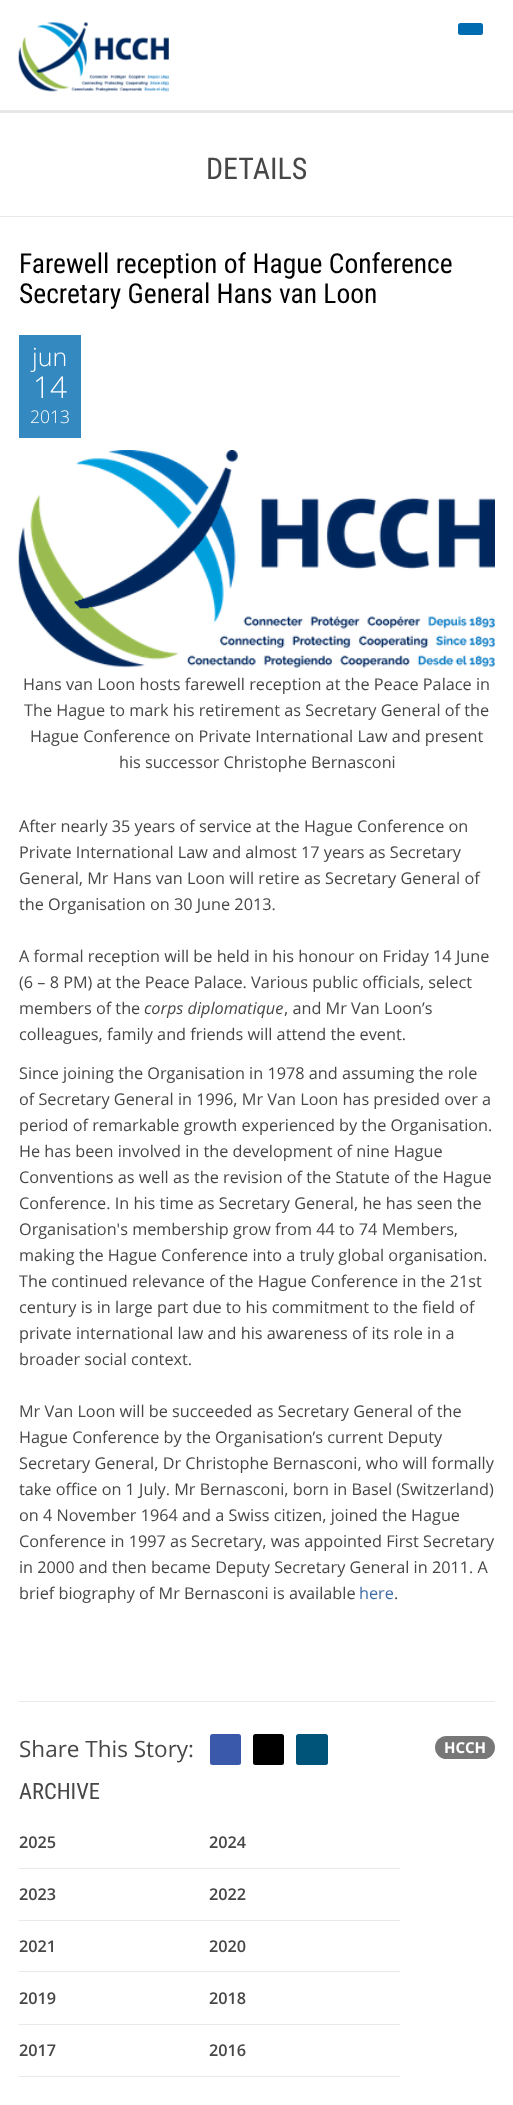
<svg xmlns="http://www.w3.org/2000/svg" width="513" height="2105">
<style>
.a{font:30px Roboto Condensed;fill:#474747}
.b{font:27.5px Roboto Condensed;fill:#000}
.c{font:300 25px Open Sans;fill:#fff}
.d{font:300 30px Open Sans;fill:#fff}
.e{font:300 17.5px Open Sans;fill:#fff}
.f{font:16.25px Open Sans;fill:#474747}
.g{font:italic 16.25px Open Sans;fill:#474747}
.h{font:16.25px Open Sans;fill:#406da4}
.i{font:22.5px Open Sans;fill:#474747}
.j{font:bold 15px Open Sans;fill:#fff}
.k{font:22.5px Roboto Condensed;fill:#474747}
.l{font:600 16.25px Open Sans;fill:#474747}
</style>
<rect width="100%" height="100%" fill="#fff"/>
<path fill="#e7e7e7" d="M0 110h513v3H0z"/>
<image href="1.png" x="18" y="22" width="151" height="70"/>
<rect fill="#006bb0" x="458" y="23" width="25" height="12" rx="2.5"/>
<path fill="#eaeaea" d="M0 216h513v1H0z"/>
<path fill="#3389c0" d="M19 335h62v103H19z"/>
<image href="2.png" x="18" y="450" width="477" height="218"/>
<path fill="#eaeaea" d="M19 1701h476v1H19z"/>
<rect fill="#3b59ab" x="210" y="1734" width="31" height="31" rx="2.5"/>
<rect fill="#000" x="253" y="1734" width="31" height="31" rx="2.5"/>
<rect fill="#005479" x="296" y="1734" width="32" height="31" rx="2.5"/>
<rect fill="#777" x="435" y="1736" width="60" height="23" rx="11.5"/>
<path fill="#eaeaea" d="M19 1868h381v1H19z"/>
<path fill="#eaeaea" d="M19 1920h381v1H19z"/>
<path fill="#eaeaea" d="M19 1971h381v1H19z"/>
<path fill="#eaeaea" d="M19 2024h381v1H19z"/>
<path fill="#eaeaea" d="M19 2076h381v1H19z"/>
<text class="a" x="206" y="179">DETAILS</text>
<text class="b" x="19" y="273">Farewell reception of Hague Conference</text>
<text class="b" x="19" y="303">Secretary General Hans van Loon</text>
<text class="c" x="32" y="366">jun</text>
<text class="d" x="33" y="398">14</text>
<text class="e" x="30" y="423">2013</text>
<text class="f" x="23" y="690">Hans van Loon hosts farewell reception at the Peace Palace in</text>
<text class="f" x="24" y="716">The Hague to mark his retirement as Secretary General of the</text>
<text class="f" x="30" y="742">Hague Conference on Private International Law and present</text>
<text class="f" x="119" y="768">his successor Christophe Bernasconi</text>
<text class="f" x="19" y="832">After nearly 35 years of service at the Hague Conference on</text>
<text class="f" x="19" y="858">Private International Law and almost 17 years as Secretary</text>
<text class="f" x="19" y="884">General, Mr Hans van Loon will retire as Secretary General of</text>
<text class="f" x="19" y="910">the Organisation on 30 June 2013.</text>
<text class="f" x="19" y="962">A formal reception will be held in his honour on Friday 14 June</text>
<text class="f" x="19" y="988">(6 – 8 PM) at the Peace Palace. Various public officials, select</text>
<text class="f" x="19" y="1014">members of the</text>
<text class="g" x="144" y="1014">corps diplomatique</text>
<text class="f" x="284" y="1014">, and Mr Van Loon’s</text>
<text class="f" x="19" y="1040">colleagues, family and friends will attend the event.</text>
<text class="f" x="19" y="1079">Since joining the Organisation in 1978 and assuming the role</text>
<text class="f" x="19" y="1105">of Secretary General in 1996, Mr Van Loon has presided over a</text>
<text class="f" x="19" y="1131">period of remarkable growth experienced by the Organisation.</text>
<text class="f" x="19" y="1157">He has been involved in the development of nine Hague</text>
<text class="f" x="19" y="1183">Conventions as well as the revision of the Statute of the Hague</text>
<text class="f" x="19" y="1209">Conference. In his time as Secretary General, he has seen the</text>
<text class="f" x="19" y="1235">Organisation's membership grow from 44 to 74 Members,</text>
<text class="f" x="19" y="1261">making the Hague Conference into a truly global organisation.</text>
<text class="f" x="19" y="1287">The continued relevance of the Hague Conference in the 21st</text>
<text class="f" x="19" y="1313">century is in large part due to his commitment to the field of</text>
<text class="f" x="19" y="1339">private international law and his awareness of its role in a</text>
<text class="f" x="19" y="1365">broader social context.</text>
<text class="f" x="19" y="1417">Mr Van Loon will be succeeded as Secretary General of the</text>
<text class="f" x="19" y="1443">Hague Conference by the Organisation’s current Deputy</text>
<text class="f" x="19" y="1469">Secretary General, Dr Christophe Bernasconi, who will formally</text>
<text class="f" x="19" y="1495">take office on 1 July. Mr Bernasconi, born in Basel (Switzerland)</text>
<text class="f" x="19" y="1521">on 4 November 1964 and a Swiss citizen, joined the Hague</text>
<text class="f" x="19" y="1547">Conference in 1997 as Secretary, was appointed First Secretary</text>
<text class="f" x="19" y="1573">in 2000 and then became Deputy Secretary General in 2011. A</text>
<text class="f" x="19" y="1599">brief biography of Mr Bernasconi is available</text>
<text class="h" x="359" y="1599">here</text>
<text class="f" x="394" y="1599">.</text>
<text class="i" x="19" y="1757">Share This Story:</text>
<text class="j" x="444" y="1753">HCCH</text>
<text class="k" x="19" y="1799">ARCHIVE</text>
<text class="l" x="19" y="1848">2025</text>
<text class="l" x="209" y="1848">2024</text>
<text class="l" x="19" y="1900">2023</text>
<text class="l" x="209" y="1900">2022</text>
<text class="l" x="19" y="1952">2021</text>
<text class="l" x="209" y="1952">2020</text>
<text class="l" x="19" y="2004">2019</text>
<text class="l" x="209" y="2004">2018</text>
<text class="l" x="19" y="2056">2017</text>
<text class="l" x="209" y="2056">2016</text>
</svg>
